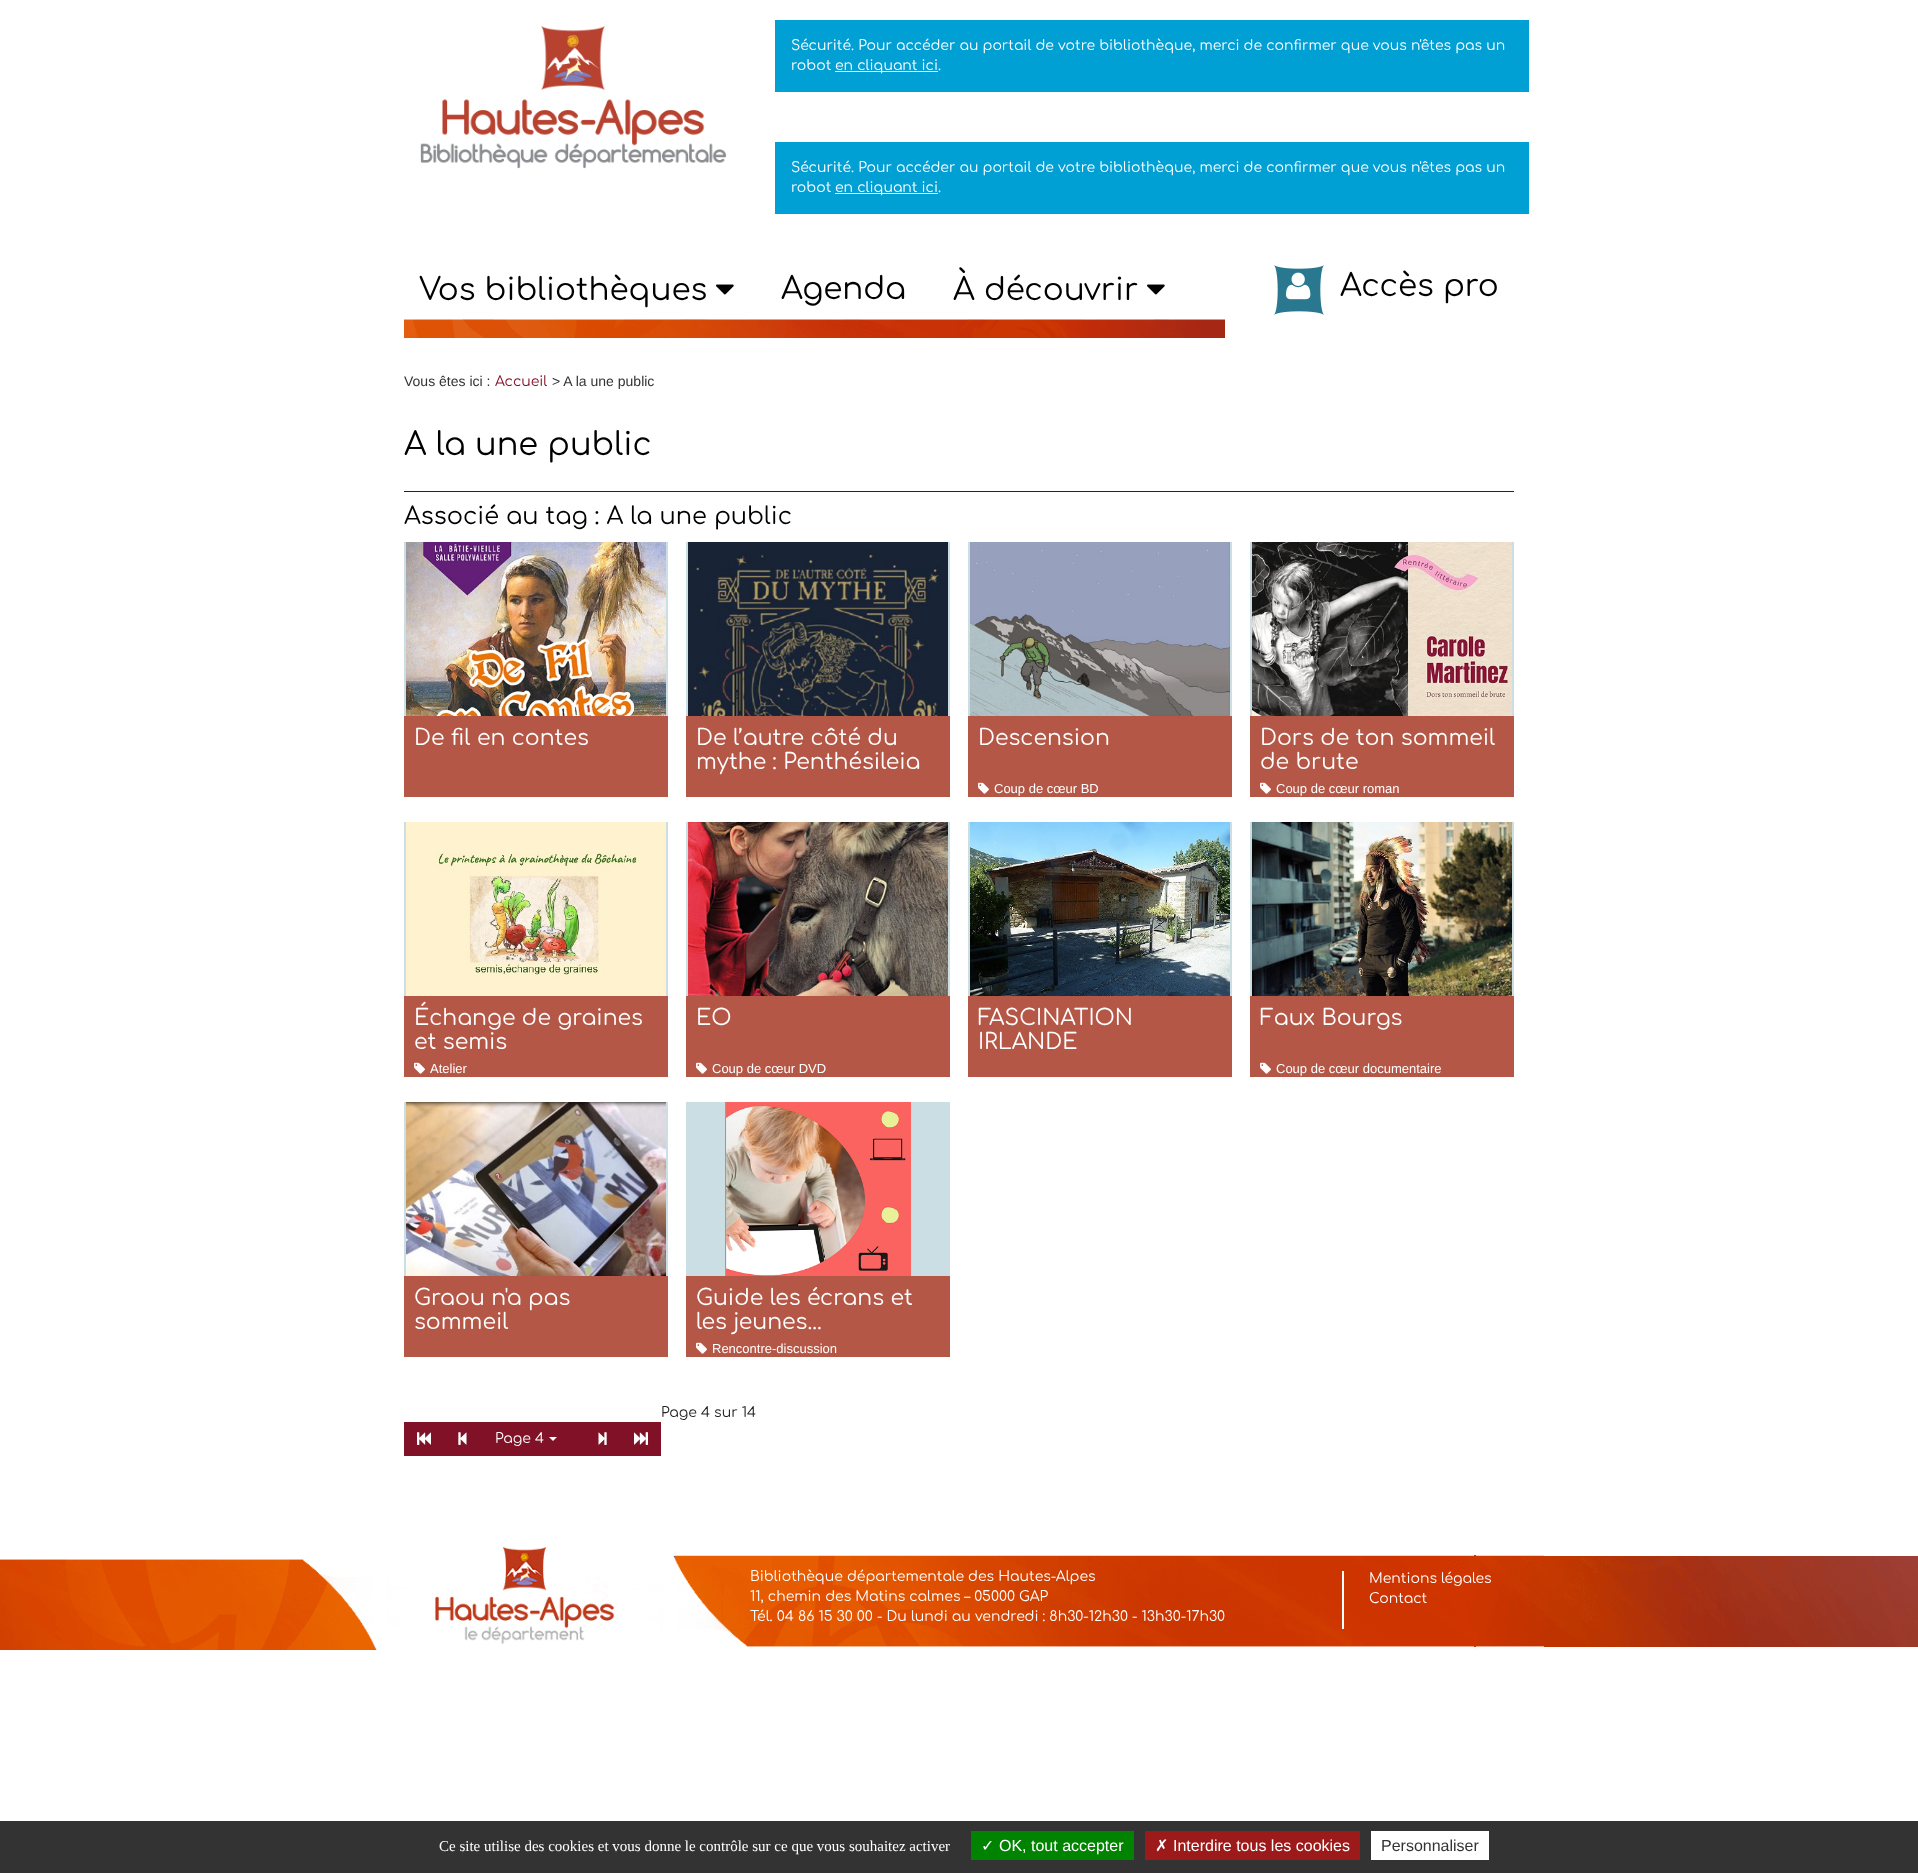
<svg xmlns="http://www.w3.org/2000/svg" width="1918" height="1873">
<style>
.a{font:14px Comfortaa;fill:#fff}
.b{font:31px Comfortaa;fill:#000}
.c{font:14px Liberation Sans;fill:#333}
.d{font:14px Comfortaa;fill:#801126}
.e{font:32px Comfortaa;fill:#000}
.f{font:24px Comfortaa;fill:#000}
.g{font:22px Comfortaa;fill:#fff}
.h{font:13px Liberation Sans;fill:#fff}
.i{font:14px Comfortaa;fill:#222}
.j{font:15px Liberation Serif;fill:#fff}
.k{font:16px DejaVu Sans;fill:#fff}
.l{font:16px Liberation Sans;fill:#fff}
.m{font:16px Liberation Sans;fill:#333}
</style>
<rect width="100%" height="100%" fill="#fff"/>
<image href="1.png" x="0" y="1555" width="1918" height="95"/>
<image href="2.png" x="420" y="26" width="307" height="143"/>
<path fill="#009fd4" d="M775 20h754v72H775z"/>
<path fill="#fff" d="M835 71h103v1H835z"/>
<path fill="#009fd4" d="M775 142h754v72H775z"/>
<path fill="#fff" d="M835 193h103v1H835z"/>
<image href="3.png" x="404" y="319" width="821" height="19"/>
<image href="4.png" x="716" y="284" width="18" height="11"/>
<image href="4.png" x="1147" y="284" width="18" height="11"/>
<image href="5.png" x="1274" y="265" width="50" height="50"/>
<image href="6.png" x="1286" y="272" width="25" height="28"/>
<path fill="#222" d="M404 491h1110v1H404z"/>
<path fill="#cadee3" d="M404 542h264v174H404z"/>
<image href="7.png" x="406" y="542" width="260" height="174"/>
<path fill="#b55746" d="M404 716h264v81H404z"/>
<path fill="#cadee3" d="M686 542h264v174H686z"/>
<image href="8.png" x="688" y="542" width="260" height="174"/>
<path fill="#b55746" d="M686 716h264v81H686z"/>
<path fill="#cadee3" d="M968 542h264v174H968z"/>
<image href="9.png" x="970" y="542" width="260" height="174"/>
<path fill="#b55746" d="M968 716h264v81H968z"/>
<image href="10.png" x="978" y="782" width="11" height="12"/>
<path fill="#cadee3" d="M1250 542h264v174H1250z"/>
<image href="11.png" x="1252" y="542" width="260" height="174"/>
<path fill="#b55746" d="M1250 716h264v81H1250z"/>
<image href="10.png" x="1260" y="782" width="11" height="12"/>
<path fill="#cadee3" d="M404 822h264v174H404z"/>
<image href="12.png" x="406" y="822" width="260" height="174"/>
<path fill="#b55746" d="M404 996h264v81H404z"/>
<image href="10.png" x="414" y="1062" width="11" height="12"/>
<path fill="#cadee3" d="M686 822h264v174H686z"/>
<image href="13.png" x="688" y="822" width="260" height="174"/>
<path fill="#b55746" d="M686 996h264v81H686z"/>
<image href="10.png" x="696" y="1062" width="11" height="12"/>
<path fill="#cadee3" d="M968 822h264v174H968z"/>
<image href="14.png" x="970" y="822" width="260" height="174"/>
<path fill="#b55746" d="M968 996h264v81H968z"/>
<path fill="#cadee3" d="M1250 822h264v174H1250z"/>
<image href="15.png" x="1252" y="822" width="260" height="174"/>
<path fill="#b55746" d="M1250 996h264v81H1250z"/>
<image href="10.png" x="1260" y="1062" width="11" height="12"/>
<path fill="#cadee3" d="M404 1102h264v174H404z"/>
<image href="16.png" x="406" y="1102" width="260" height="174"/>
<path fill="#b55746" d="M404 1276h264v81H404z"/>
<path fill="#cadee3" d="M686 1102h264v174H686z"/>
<image href="17.png" x="725" y="1102" width="186" height="174"/>
<path fill="#b55746" d="M686 1276h264v81H686z"/>
<image href="10.png" x="696" y="1342" width="11" height="12"/>
<path fill="#801126" d="M404 1422h78v34H404z"/>
<image href="18.png" x="417" y="1432" width="14" height="13"/>
<path fill="#801126" d="M482 1422h179v34H482z"/>
<image href="19.png" x="598" y="1432" width="9" height="13"/>
<image href="20.png" x="458" y="1432" width="9" height="13"/>
<path fill="#fff" d="M549 1437h8l-4 4z"/>
<image href="21.png" x="634" y="1432" width="15" height="13"/>
<image href="22.png" x="435" y="1547" width="180" height="97"/>
<path fill="#333" d="M0 1821h1918v52H0z"/>
<path fill="#008300" d="M971 1831h163v29H971z"/>
<path fill="#9c1a1a" d="M1145 1831h215v29H1145z"/>
<path fill="#fff" d="M1371 1831h118v29H1371z"/>
<text class="a" x="791" y="50">Sécurité. Pour accéder au portail de votre bibliothèque, merci de confirmer que vous n'êtes pas un</text>
<text class="a" x="791" y="70">robot</text>
<text class="a" x="835" y="70">en cliquant ici.</text>
<text class="a" x="791" y="172">Sécurité. Pour accéder au portail de votre bibliothèque, merci de confirmer que vous n'êtes pas un</text>
<text class="a" x="791" y="192">robot</text>
<text class="a" x="835" y="192">en cliquant ici.</text>
<text class="b" x="419" y="300">Vos bibliothèques</text>
<text class="b" x="781" y="299">Agenda</text>
<text class="b" x="953" y="300">À découvrir</text>
<text class="b" x="1340" y="296">Accès pro</text>
<text class="c" x="404" y="386">Vous êtes ici :</text>
<text class="d" x="495" y="386">Accueil</text>
<text class="c" x="552" y="386">&gt; A la une public</text>
<text class="e" x="404" y="455">A la une public</text>
<text class="f" x="404" y="524">Associé au tag : A la une public</text>
<text class="g" x="414" y="745">De fil en contes</text>
<text class="g" x="696" y="745">De l’autre côté du</text>
<text class="g" x="696" y="769">mythe : Penthésileia</text>
<text class="g" x="978" y="745">Descension</text>
<text class="h" x="994" y="793">Coup de cœur BD</text>
<text class="g" x="1260" y="745">Dors de ton sommeil</text>
<text class="g" x="1260" y="769">de brute</text>
<text class="h" x="1276" y="793">Coup de cœur roman</text>
<text class="g" x="414" y="1025">Échange de graines</text>
<text class="g" x="414" y="1049">et semis</text>
<text class="h" x="430" y="1073">Atelier</text>
<text class="g" x="696" y="1025">EO</text>
<text class="h" x="712" y="1073">Coup de cœur DVD</text>
<text class="g" x="978" y="1025">FASCINATION</text>
<text class="g" x="978" y="1049">IRLANDE</text>
<text class="g" x="1260" y="1025">Faux Bourgs</text>
<text class="h" x="1276" y="1073">Coup de cœur documentaire</text>
<text class="g" x="414" y="1305">Graou n'a pas</text>
<text class="g" x="414" y="1329">sommeil</text>
<text class="g" x="696" y="1305">Guide les écrans et</text>
<text class="g" x="696" y="1329">les jeunes...</text>
<text class="h" x="712" y="1353">Rencontre-discussion</text>
<text class="i" x="661" y="1417">Page 4 sur 14</text>
<text class="a" x="495" y="1443">Page 4</text>
<text class="a" x="750" y="1581">Bibliothèque départementale des Hautes-Alpes</text>
<text class="a" x="750" y="1601">11, chemin des Matins calmes – 05000 GAP</text>
<text class="a" x="750" y="1621">Tél. 04 86 15 30 00 - Du lundi au vendredi : 8h30-12h30 - 13h30-17h30</text>
<text class="a" x="1369" y="1583">Mentions légales</text>
<text class="a" x="1369" y="1603">Contact</text>
<text class="j" x="439" y="1851">Ce site utilise des cookies et vous donne le contrôle sur ce que vous souhaitez activer</text>
<text class="k" x="981" y="1851">✓</text>
<text class="l" x="999" y="1851">OK, tout accepter</text>
<text class="k" x="1155" y="1851">✗</text>
<text class="l" x="1173" y="1851">Interdire tous les cookies</text>
<text class="m" x="1381" y="1851">Personnaliser</text>
</svg>
